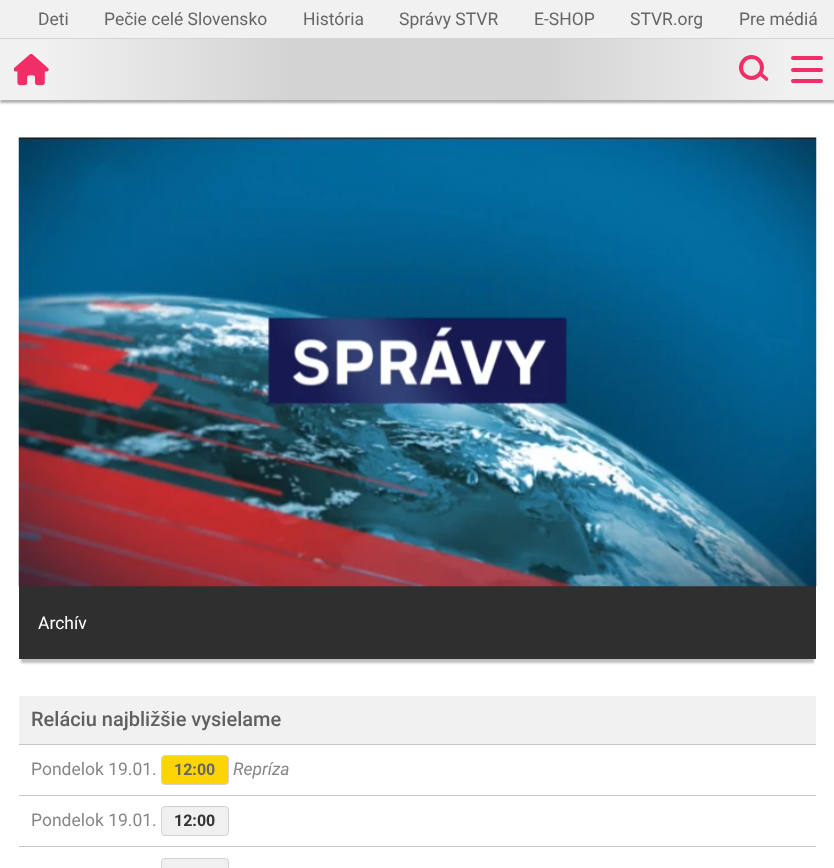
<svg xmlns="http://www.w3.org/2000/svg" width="834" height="868">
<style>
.a{font:17.5px Roboto;fill:#666}
.b{font:17.5px Roboto;fill:#fff}
.c{font:500 20px Roboto;fill:#606060}
.d{font:17.5px Roboto;fill:#878787}
.e{font:bold 16px Roboto;fill:#666}
.f{font:italic 17.5px Roboto;fill:#878787}
.g{font:bold 16px Roboto;fill:#333}
</style>
<defs>
<linearGradient id="g1" gradientUnits="userSpaceOnUse" x1="0" y1="69" x2="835" y2="69"><stop offset="0.05" stop-color="#f1f1f1"/><stop offset="0.35" stop-color="#d3d3d3"/><stop offset="0.5" stop-color="#d4d4d4"/><stop offset="0.65" stop-color="#d3d3d3"/><stop offset="0.95" stop-color="#f1f1f1"/></linearGradient>
</defs>
<rect width="100%" height="100%" fill="#fff"/>
<path fill="#f1f1f1" d="M0 0h834v38H0z"/>
<path fill="#d4d4d4" d="M0 38h834v1H0z"/>
<path fill="#0000004d" filter="blur(1px)" d="M0 41h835v62H0z"/>
<path fill="url(#g1)" d="M0 39h834v61H0z"/>
<image href="1.png" x="14" y="54" width="35" height="32"/>
<circle fill="none" stroke="#f12e68" stroke-width="4" cx="751.5" cy="67.5" r="10.5"/>
<path fill="#f12e68" d="M761 72l7 6c1 2-1 4-2.5 2.5l-7-6c-1.5-1.5 1-4 2.5-2.5z"/>
<rect fill="#f12e68" x="791" y="56" width="32" height="4" rx="2"/>
<rect fill="#f12e68" x="791" y="68" width="32" height="4" rx="2"/>
<rect fill="#f12e68" x="791" y="79" width="32" height="4" rx="2"/>
<path fill="#00000040" filter="blur(1px)" d="M21 146h793v517H21z"/>
<path fill="#2f2f2f" d="M19 586h797v73H19z"/>
<image href="2.png" x="18" y="137" width="799" height="450"/>
<path fill="#f1f1f1" d="M19 696h797v48H19z"/>
<path fill="#c7c7c7" d="M19 744h797v1H19z"/>
<rect fill="#fed501" stroke="#d2d2d2" x="161.5" y="755.5" width="67" height="29" rx="3.5"/>
<path fill="#c7c7c7" d="M19 795h797v1H19z"/>
<rect fill="#f0f0f0" stroke="#d2d2d2" x="161.5" y="806.5" width="67" height="29" rx="3.5"/>
<path fill="#c7c7c7" d="M19 846h797v1H19z"/>
<rect fill="#f0f0f0" stroke="#d2d2d2" x="161.5" y="858.5" width="67" height="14" rx="3.5"/>
<text class="a" x="38" y="25">Deti</text>
<text class="a" x="104" y="25">Pečie celé Slovensko</text>
<text class="a" x="303" y="25">História</text>
<text class="a" x="399" y="25">Správy STVR</text>
<text class="a" x="534" y="25">E-SHOP</text>
<text class="a" x="630" y="25">STVR.org</text>
<text class="a" x="739" y="25">Pre médiá</text>
<text class="b" x="38" y="629">Archív</text>
<text class="c" x="31" y="726">Reláciu najbližšie vysielame</text>
<text class="d" x="31" y="775">Pondelok 19.01.</text>
<text class="e" x="174" y="775">12:00</text>
<text class="f" x="233" y="775">Repríza</text>
<text class="d" x="31" y="826">Pondelok 19.01.</text>
<text class="g" x="174" y="826">12:00</text>
</svg>
